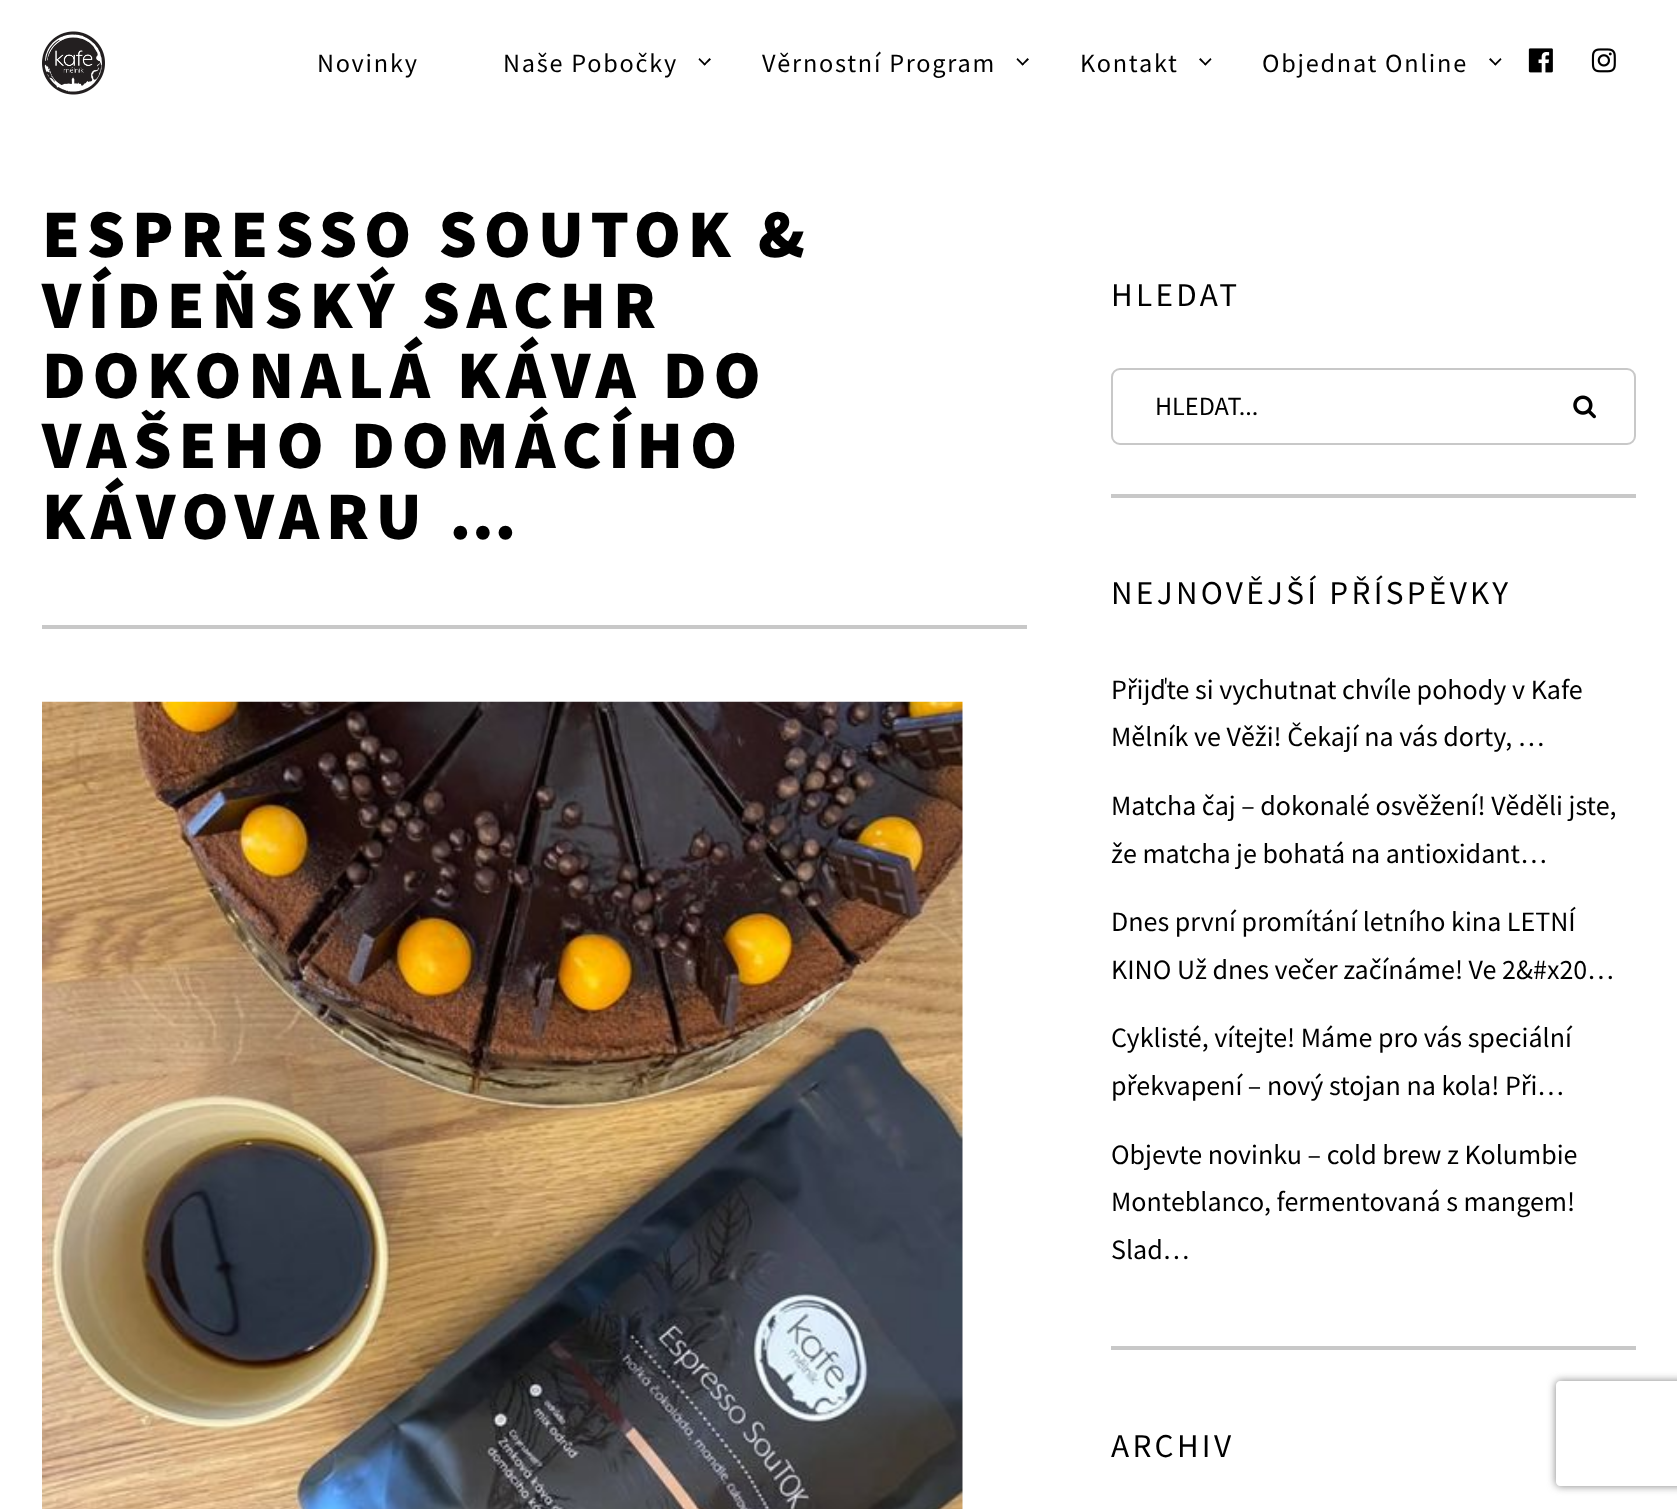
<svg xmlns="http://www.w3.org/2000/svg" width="1677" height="1509">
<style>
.a{font:26.25px Source Sans Pro;letter-spacing:1.75px;fill:#000}
.b{font:900 68.25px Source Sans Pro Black;letter-spacing:6.8px;fill:#000}
.c{font:33.25px Source Sans Pro;letter-spacing:3.3px;fill:#000}
.d{font:26.25px Source Sans Pro;fill:#000}
.e{font:28px Source Sans Pro;fill:#000}
</style>
<defs>
<clipPath id="clip1"><path d="M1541 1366h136v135h-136zm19 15h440c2 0 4 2 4 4v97c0 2-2 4-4 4h-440c-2 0-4-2-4-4v-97c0-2 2-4 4-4z" clip-rule="evenodd"/></clipPath>
</defs>
<rect width="100%" height="100%" fill="#fff"/>
<image href="1.png" x="42" y="31" width="63" height="64"/>
<path fill="#000" d="M709.5 58l1.5 1.5l-6.5 6l-1-1z"/>
<path fill="#000" d="M699.5 58l6.5 6.5l-1.5 1l-6-6z"/>
<path fill="#000" d="M1027.5 58l1.5 1.5l-6.5 6l-1-1z"/>
<path fill="#000" d="M1017.5 58l6.5 6.5l-1.5 1l-6-6z"/>
<path fill="#000" d="M1210.5 58l1 1.5l-6 6l-1.5-1z"/>
<path fill="#000" d="M1200.5 58l6 6.5l-1 1l-6.5-6z"/>
<path fill="#000" d="M1500.5 58l1 1.5l-6 6l-1.5-1z"/>
<path fill="#000" d="M1490.5 58l6 6.5l-1 1l-6.5-6z"/>
<image href="2.png" x="1528" y="48" width="25" height="25"/>
<image href="3.png" x="1591" y="48" width="25" height="25"/>
<path fill="#c8c8c8" d="M42 625h985v4H42z"/>
<image href="4.png" x="42" y="701" width="921" height="808"/>
<path fill="#c8c8c8" d="M1111 494h525v4H1111z"/>
<rect fill="none" stroke="#c8c8c8" stroke-width="2" x="1112" y="369" width="523" height="75" rx="8"/>
<image href="5.png" x="1573" y="395" width="23" height="24"/>
<path fill="#c8c8c8" d="M1111 1346h525v4H1111z"/>
<g clip-path="url(#clip1)">
<rect fill="#808080" filter="blur(4.5px)" x="1556" y="1381" width="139" height="105" rx="4"/>
</g>
<text class="a" x="317" y="72">Novinky</text>
<text class="a" x="503" y="72">Naše Pobočky</text>
<text class="a" x="762" y="72">Věrnostní Program</text>
<text class="a" x="1080" y="72">Kontakt</text>
<text class="a" x="1262" y="72">Objednat Online</text>
<text class="b" x="42" y="257">ESPRESSO SOUTOK &amp;</text>
<text class="b" x="42" y="328">VÍDEŇSKÝ SACHR</text>
<text class="b" x="42" y="398">DOKONALÁ KÁVA DO</text>
<text class="b" x="42" y="468">VAŠEHO DOMÁCÍHO</text>
<text class="b" x="42" y="539">KÁVOVARU …</text>
<text class="c" x="1111" y="306">HLEDAT</text>
<text class="d" x="1155" y="415">HLEDAT...</text>
<text class="c" x="1111" y="604">NEJNOVĚJŠÍ PŘÍSPĚVKY</text>
<text class="e" x="1111" y="699">Přijďte si vychutnat chvíle pohody v Kafe</text>
<text class="e" x="1111" y="746">Mělník ve Věži! Čekají na vás dorty, …</text>
<text class="e" x="1111" y="815">Matcha čaj – dokonalé osvěžení! Věděli jste,</text>
<text class="e" x="1111" y="863">že matcha je bohatá na antioxidant…</text>
<text class="e" x="1111" y="931">Dnes první promítání letního kina LETNÍ</text>
<text class="e" x="1111" y="979">KINO Už dnes večer začínáme! Ve 2&amp;#x20…</text>
<text class="e" x="1111" y="1047">Cyklisté, vítejte! Máme pro vás speciální</text>
<text class="e" x="1111" y="1095">překvapení – nový stojan na kola! Při…</text>
<text class="e" x="1111" y="1164">Objevte novinku – cold brew z Kolumbie</text>
<text class="e" x="1111" y="1211">Monteblanco, fermentovaná s mangem!</text>
<text class="e" x="1111" y="1259">Slad…</text>
<text class="c" x="1111" y="1457">ARCHIV</text>
</svg>
